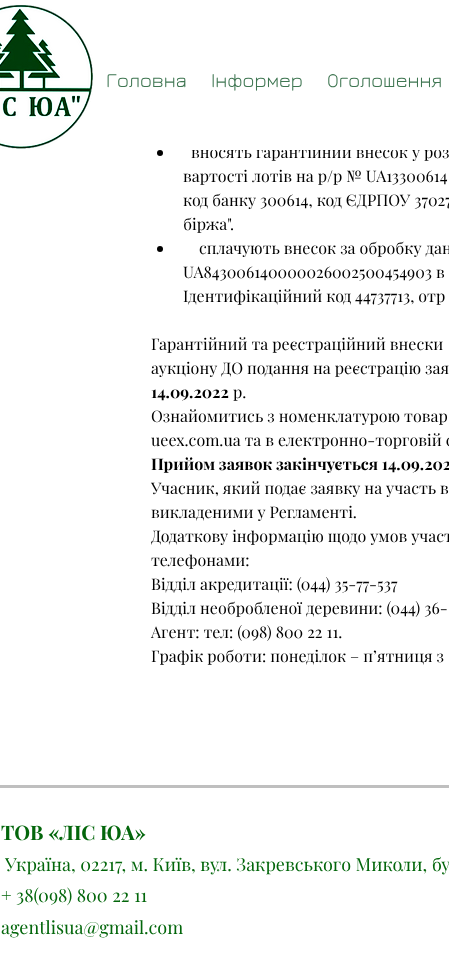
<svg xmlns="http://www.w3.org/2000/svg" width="449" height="975">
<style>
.a{font:20px Jura;fill:#3f7652}
.b{font:16px Playfair Display;fill:#000}
.c{font:bold 16px Playfair Display;fill:#000}
.d{font:bold 20px Playfair Display;fill:#03660b}
.e{font:18px Playfair Display;fill:#03660b}
</style>
<rect width="100%" height="100%" fill="#fff"/>
<image href="1.png" x="0" y="5" width="93" height="144"/>
<circle fill="#000" cx="160" cy="153" r="3"/>
<circle fill="#000" cx="160" cy="249" r="3"/>
<path fill="#bfbfbf" d="M0 785h449v3H0z"/>
<text class="a" x="106" y="87">Головна</text>
<text class="a" x="211" y="87">Інформер</text>
<text class="a" x="327" y="87">Оголошення</text>
<text class="b" x="191" y="158">вносять гарантійний внесок у роз</text>
<path fill="#fff" d="M191 145h257v5H191z"/>
<text class="b" x="183" y="182">вартості лотів на р/р № UA13300614</text>
<text class="b" x="183" y="206">код банку 300614, код ЄДРПОУ 37027</text>
<text class="b" x="183" y="230">біржа".</text>
<text class="b" x="199" y="254">сплачують внесок за обробку дан</text>
<text class="b" x="183" y="278">UA843006140000026002500454903 в</text>
<text class="b" x="183" y="302">Ідентифікаційний код 44737713, отр</text>
<text class="b" x="151" y="350">Гарантійний та реєстраційний внески</text>
<text class="b" x="151" y="374">аукціону ДО подання на реєстрацію зая</text>
<text class="c" x="151" y="398">14.09.2022</text>
<text class="b" x="233" y="398">р.</text>
<text class="b" x="151" y="422">Ознайомитись з номенклатурою товар</text>
<text class="b" x="151" y="446">ueex.com.ua та в електронно-торговій с</text>
<text class="c" x="151" y="470">Прийом заявок закінчується 14.09.202</text>
<text class="b" x="151" y="494">Учасник, який подає заявку на участь в</text>
<text class="b" x="151" y="518">викладеними у Регламенті.</text>
<text class="b" x="151" y="542">Додаткову інформацію щодо умов участ</text>
<text class="b" x="151" y="566">телефонами:</text>
<text class="b" x="151" y="590">Відділ акредитації: (044) 35-77-537</text>
<text class="b" x="151" y="614">Відділ необробленої деревини: (044) 36-</text>
<text class="b" x="151" y="638">Агент: тел: (098) 800 22 11.</text>
<text class="b" x="151" y="662">Графік роботи: понеділок – п’ятниця з</text>
<text class="d" x="1" y="840">ТОВ «ЛІС ЮА»</text>
<text class="e" x="5" y="871">Україна, 02217, м. Київ, вул. Закревського Миколи, бу</text>
<text class="e" x="1" y="902">+ 38(098) 800 22 11</text>
<text class="e" x="1" y="934">agentlisua@gmail.com</text>
</svg>
